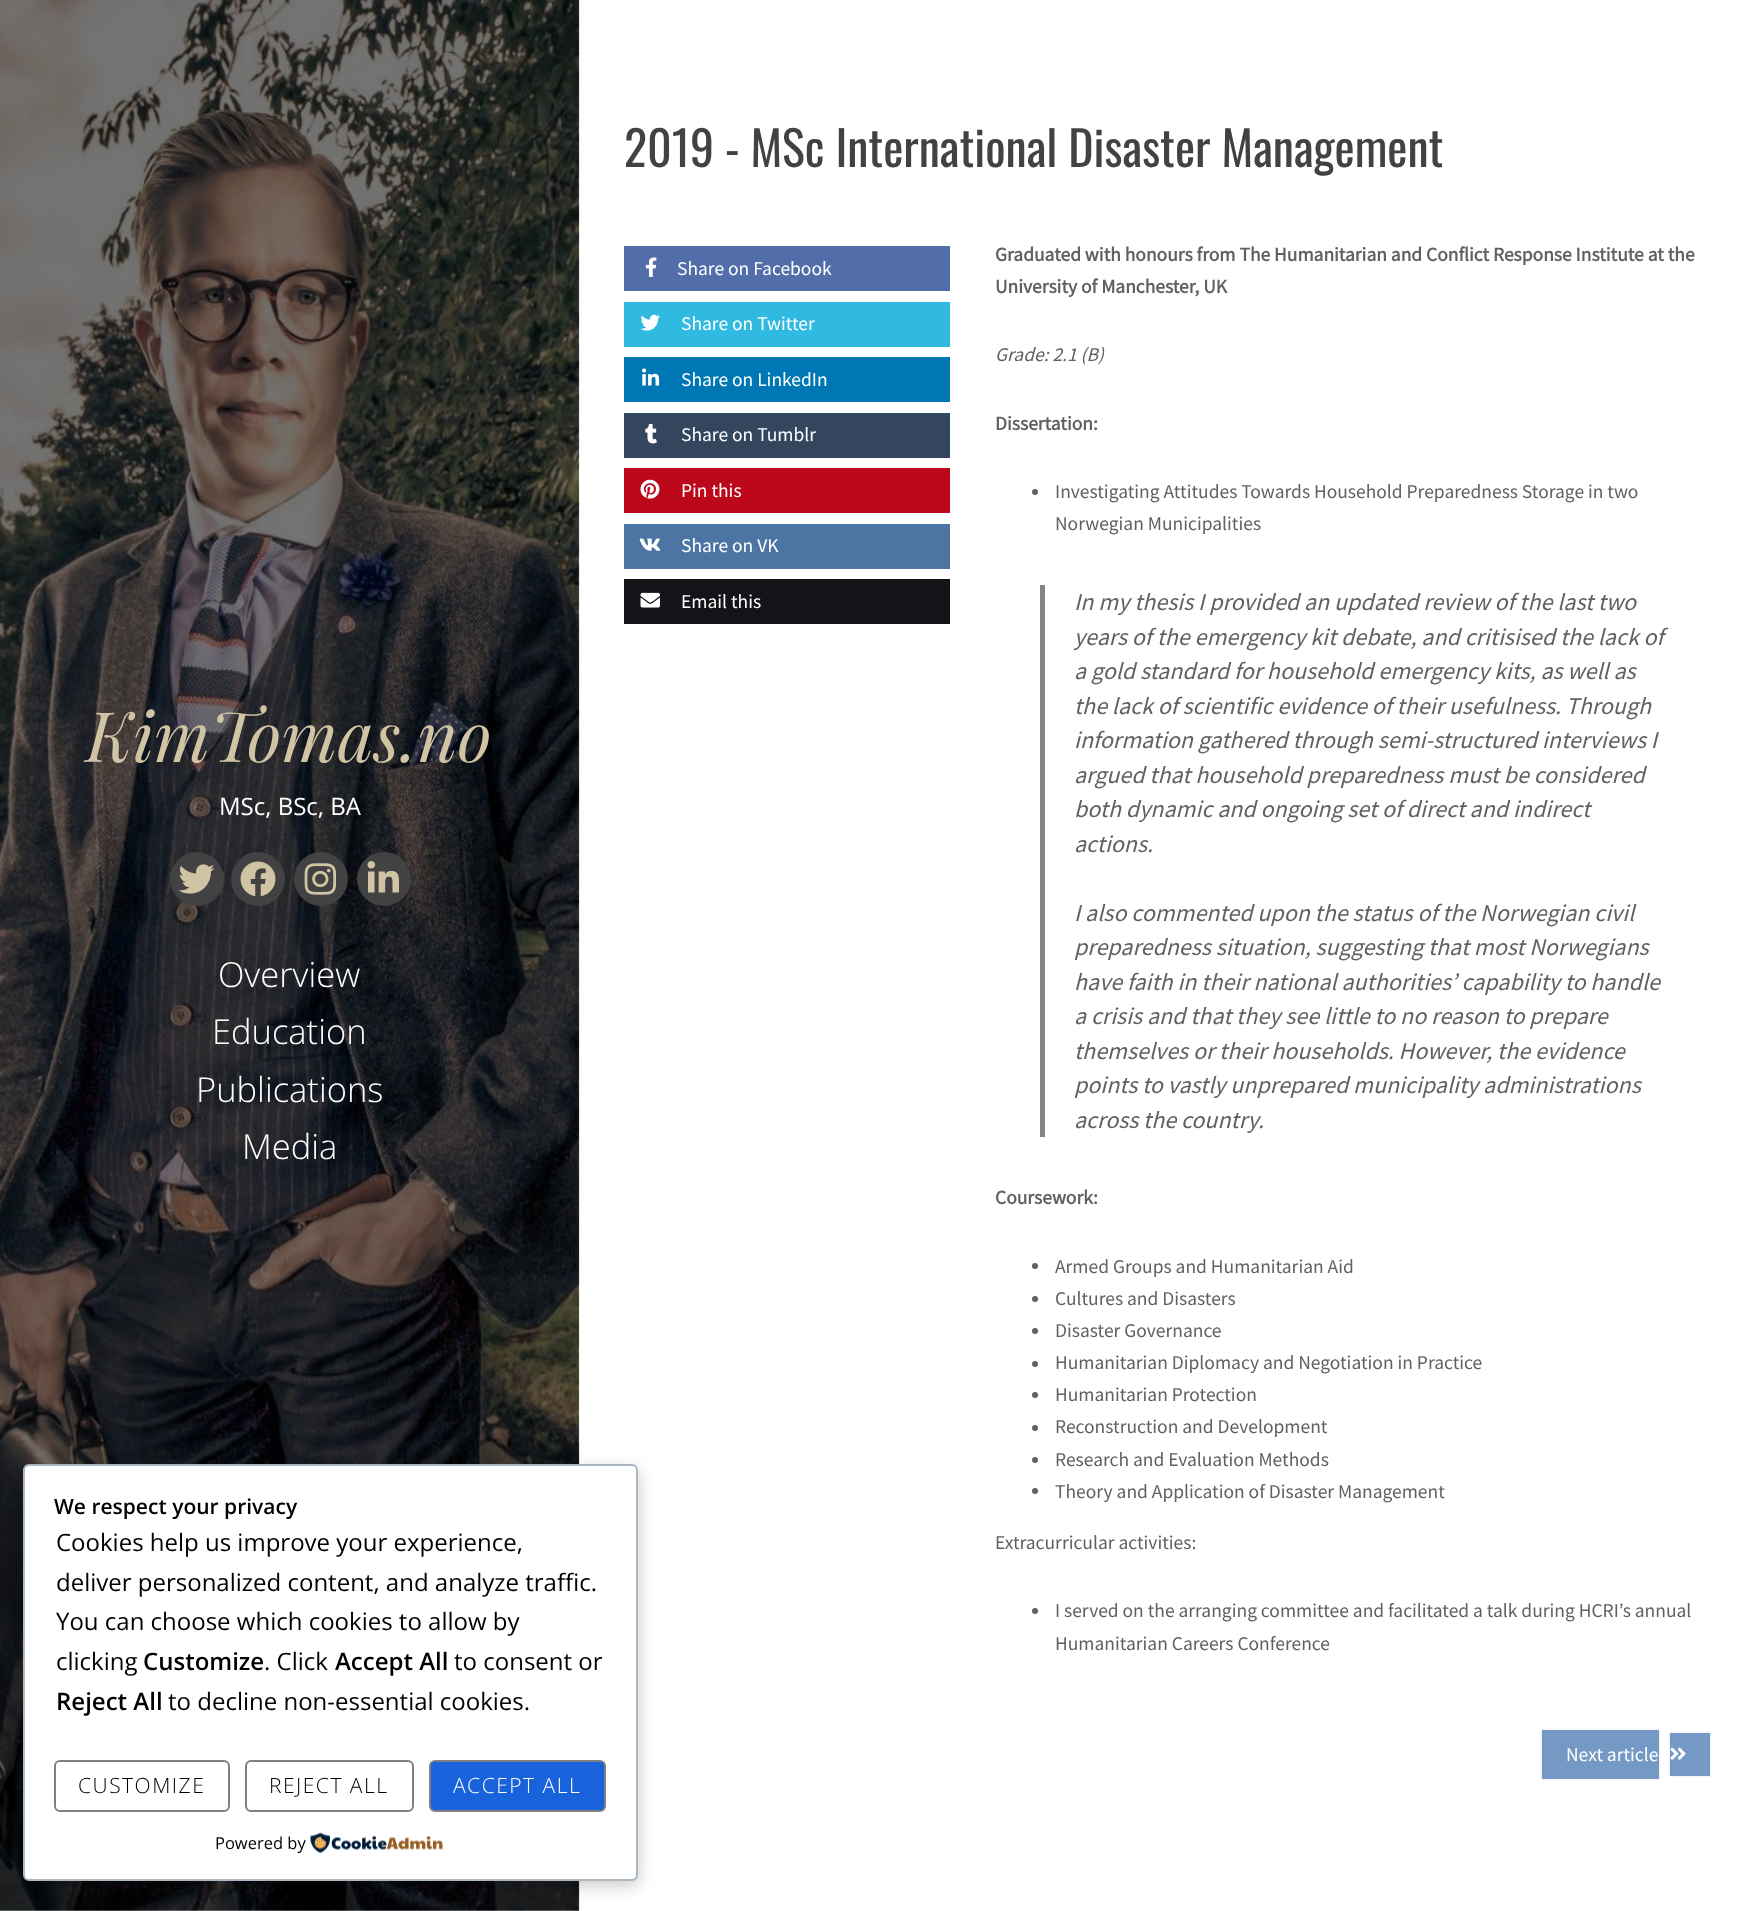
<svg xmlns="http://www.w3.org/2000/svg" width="1754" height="1911">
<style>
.a{font:italic 69.5px Playfair Display;fill:#d1c4a5}
.b{font:24px Open Sans;fill:#fff}
.c{font:300 34.5px Open Sans;fill:#fff}
.d{font:48px Oswald;fill:#424242}
.e{font:19.5px Source Sans Pro;fill:#fff}
.f{font:bold 19.5px Source Sans Pro;fill:#616161}
.g{font:italic 19.5px Source Sans Pro;fill:#616161}
.h{font:19.5px Source Sans Pro;fill:#616161}
.i{font:italic 24px Source Sans Pro;fill:#616161}
.j{font:600 21px Open Sans;fill:#000}
.k{font:24px Open Sans;fill:#000}
.l{font:600 24px Open Sans;fill:#000}
.m{font:300 21px Open Sans;letter-spacing:1.5px;fill:#000}
.n{font:300 21px Open Sans;letter-spacing:1.5px;fill:#fff}
.o{font:16.5px Open Sans;fill:#000}
</style>
<rect width="100%" height="100%" fill="#fff"/>
<image href="1.png" x="0" y="0" width="580" height="1911"/>
<circle fill="#424242" cx="197" cy="879" r="27"/>
<image href="2.png" x="178" y="864" width="37" height="30"/>
<circle fill="#424242" cx="258" cy="879" r="27"/>
<image href="3.png" x="240" y="861" width="36" height="36"/>
<circle fill="#424242" cx="321" cy="879" r="27"/>
<image href="4.png" x="304" y="863" width="33" height="32"/>
<circle fill="#424242" cx="384" cy="879" r="27"/>
<image href="5.png" x="367" y="861" width="32" height="32"/>
<path fill="#516eab" d="M624 246h326v45H624z"/>
<image href="6.png" x="645" y="257" width="12" height="20"/>
<path fill="#31bae1" d="M624 302h326v45H624z"/>
<image href="7.png" x="640" y="314" width="20" height="17"/>
<path fill="#0077b5" d="M624 357h326v45H624z"/>
<image href="8.png" x="642" y="368" width="18" height="18"/>
<path fill="#34465d" d="M624 413h326v45H624z"/>
<image href="9.png" x="645" y="423" width="12" height="21"/>
<path fill="#bd081c" d="M624 468h326v45H624z"/>
<image href="10.png" x="640" y="479" width="20" height="20"/>
<path fill="#4c75a3" d="M624 524h326v45H624z"/>
<image href="11.png" x="639" y="538" width="22" height="13"/>
<path fill="#131418" d="M624 579h326v45H624z"/>
<image href="12.png" x="640" y="592" width="20" height="16"/>
<circle fill="#616161" cx="1035" cy="492" r="3"/>
<path fill="#838588" d="M1040 585h5v552H1040z"/>
<circle fill="#616161" cx="1035" cy="1266" r="3"/>
<circle fill="#616161" cx="1035" cy="1299" r="3"/>
<circle fill="#616161" cx="1035" cy="1331" r="3"/>
<circle fill="#616161" cx="1035" cy="1364" r="3"/>
<circle fill="#616161" cx="1035" cy="1395" r="3"/>
<circle fill="#616161" cx="1035" cy="1428" r="3"/>
<circle fill="#616161" cx="1035" cy="1460" r="3"/>
<circle fill="#616161" cx="1035" cy="1491" r="3"/>
<circle fill="#616161" cx="1035" cy="1611" r="3"/>
<path fill="#00000026" filter="blur(1px)" d="M1542 1730h117v49H1542z"/>
<path fill="#7599c5" d="M1542 1730h117v49H1542z"/>
<path fill="#00000026" filter="blur(1px)" d="M1670 1733h40v43H1670z"/>
<path fill="#7599c5" d="M1670 1733h40v43H1670z"/>
<image href="13.png" x="1670" y="1747" width="16" height="13"/>
<rect fill="#00000033" filter="blur(7.5px)" x="24" y="1469" width="615" height="417" rx="6"/>
<rect fill="#fff" stroke="#abb8c3" stroke-width="2" x="24" y="1465" width="613" height="415" rx="5"/>
<rect fill="none" stroke="#808080" stroke-width="2" x="55" y="1761" width="174" height="50" rx="5"/>
<rect fill="none" stroke="#808080" stroke-width="2" x="246" y="1761" width="167" height="50" rx="5"/>
<rect fill="#1863dc" stroke="#808080" stroke-width="2" x="430" y="1761" width="175" height="50" rx="5"/>
<image href="14.png" x="310" y="1832" width="133" height="22"/>
<text class="a" x="86" y="762">KimTomas.no</text>
<text class="b" x="219" y="815">MSc, BSc, BA</text>
<text class="c" x="218" y="987">Overview</text>
<text class="c" x="212" y="1044">Education</text>
<text class="c" x="196" y="1102">Publications</text>
<text class="c" x="242" y="1159">Media</text>
<text class="d" x="624" y="167">2019 - MSc International Disaster Management</text>
<text class="e" x="677" y="275">Share on Facebook</text>
<text class="e" x="681" y="330">Share on Twitter</text>
<text class="e" x="681" y="386">Share on LinkedIn</text>
<text class="e" x="681" y="441">Share on Tumblr</text>
<text class="e" x="681" y="497">Pin this</text>
<text class="e" x="681" y="552">Share on VK</text>
<text class="e" x="681" y="608">Email this</text>
<text class="f" x="995" y="261">Graduated with honours from The Humanitarian and Conflict Response Institute at the</text>
<text class="f" x="995" y="293">University of Manchester, UK</text>
<text class="g" x="995" y="361">Grade: 2.1 (B)</text>
<text class="f" x="995" y="430">Dissertation:</text>
<text class="h" x="1055" y="498">Investigating Attitudes Towards Household Preparedness Storage in two</text>
<text class="h" x="1055" y="530">Norwegian Municipalities</text>
<text class="i" x="1074" y="610">In my thesis I provided an updated review of the last two</text>
<text class="i" x="1074" y="645">years of the emergency kit debate, and critisised the lack of</text>
<text class="i" x="1074" y="679">a gold standard for household emergency kits, as well as</text>
<text class="i" x="1074" y="714">the lack of scientific evidence of their usefulness. Through</text>
<text class="i" x="1074" y="748">information gathered through semi-structured interviews I</text>
<text class="i" x="1074" y="783">argued that household preparedness must be considered</text>
<text class="i" x="1074" y="817">both dynamic and ongoing set of direct and indirect</text>
<text class="i" x="1074" y="852">actions.</text>
<text class="i" x="1074" y="921">I also commented upon the status of the Norwegian civil</text>
<text class="i" x="1074" y="955">preparedness situation, suggesting that most Norwegians</text>
<text class="i" x="1074" y="990">have faith in their national authorities’ capability to handle</text>
<text class="i" x="1074" y="1024">a crisis and that they see little to no reason to prepare</text>
<text class="i" x="1074" y="1059">themselves or their households. However, the evidence</text>
<text class="i" x="1074" y="1093">points to vastly unprepared municipality administrations</text>
<text class="i" x="1074" y="1128">across the country.</text>
<text class="f" x="995" y="1204">Coursework:</text>
<text class="h" x="1055" y="1273">Armed Groups and Humanitarian Aid</text>
<text class="h" x="1055" y="1305">Cultures and Disasters</text>
<text class="h" x="1055" y="1337">Disaster Governance</text>
<text class="h" x="1055" y="1369">Humanitarian Diplomacy and Negotiation in Practice</text>
<text class="h" x="1055" y="1401">Humanitarian Protection</text>
<text class="h" x="1055" y="1433">Reconstruction and Development</text>
<text class="h" x="1055" y="1466">Research and Evaluation Methods</text>
<text class="h" x="1055" y="1498">Theory and Application of Disaster Management</text>
<text class="h" x="995" y="1549">Extracurricular activities:</text>
<text class="h" x="1055" y="1617">I served on the arranging committee and facilitated a talk during HCRI’s annual</text>
<text class="h" x="1055" y="1650">Humanitarian Careers Conference</text>
<text class="e" x="1566" y="1761">Next article</text>
<text class="j" x="54" y="1514">We respect your privacy</text>
<text class="k" x="56" y="1551">Cookies help us improve your experience,</text>
<text class="k" x="56" y="1591">deliver personalized content, and analyze traffic.</text>
<text class="k" x="56" y="1630">You can choose which cookies to allow by</text>
<text class="k" x="56" y="1670">clicking</text>
<text class="l" x="143" y="1670">Customize</text>
<text class="k" x="264" y="1670">. Click</text>
<text class="l" x="335" y="1670">Accept All</text>
<text class="k" x="454" y="1670">to consent or</text>
<text class="l" x="56" y="1710">Reject All</text>
<text class="k" x="168" y="1710">to decline non-essential cookies.</text>
<text class="m" x="78" y="1793">CUSTOMIZE</text>
<text class="m" x="269" y="1793">REJECT ALL</text>
<text class="n" x="453" y="1793">ACCEPT ALL</text>
<text class="o" x="215" y="1849">Powered by</text>
</svg>
